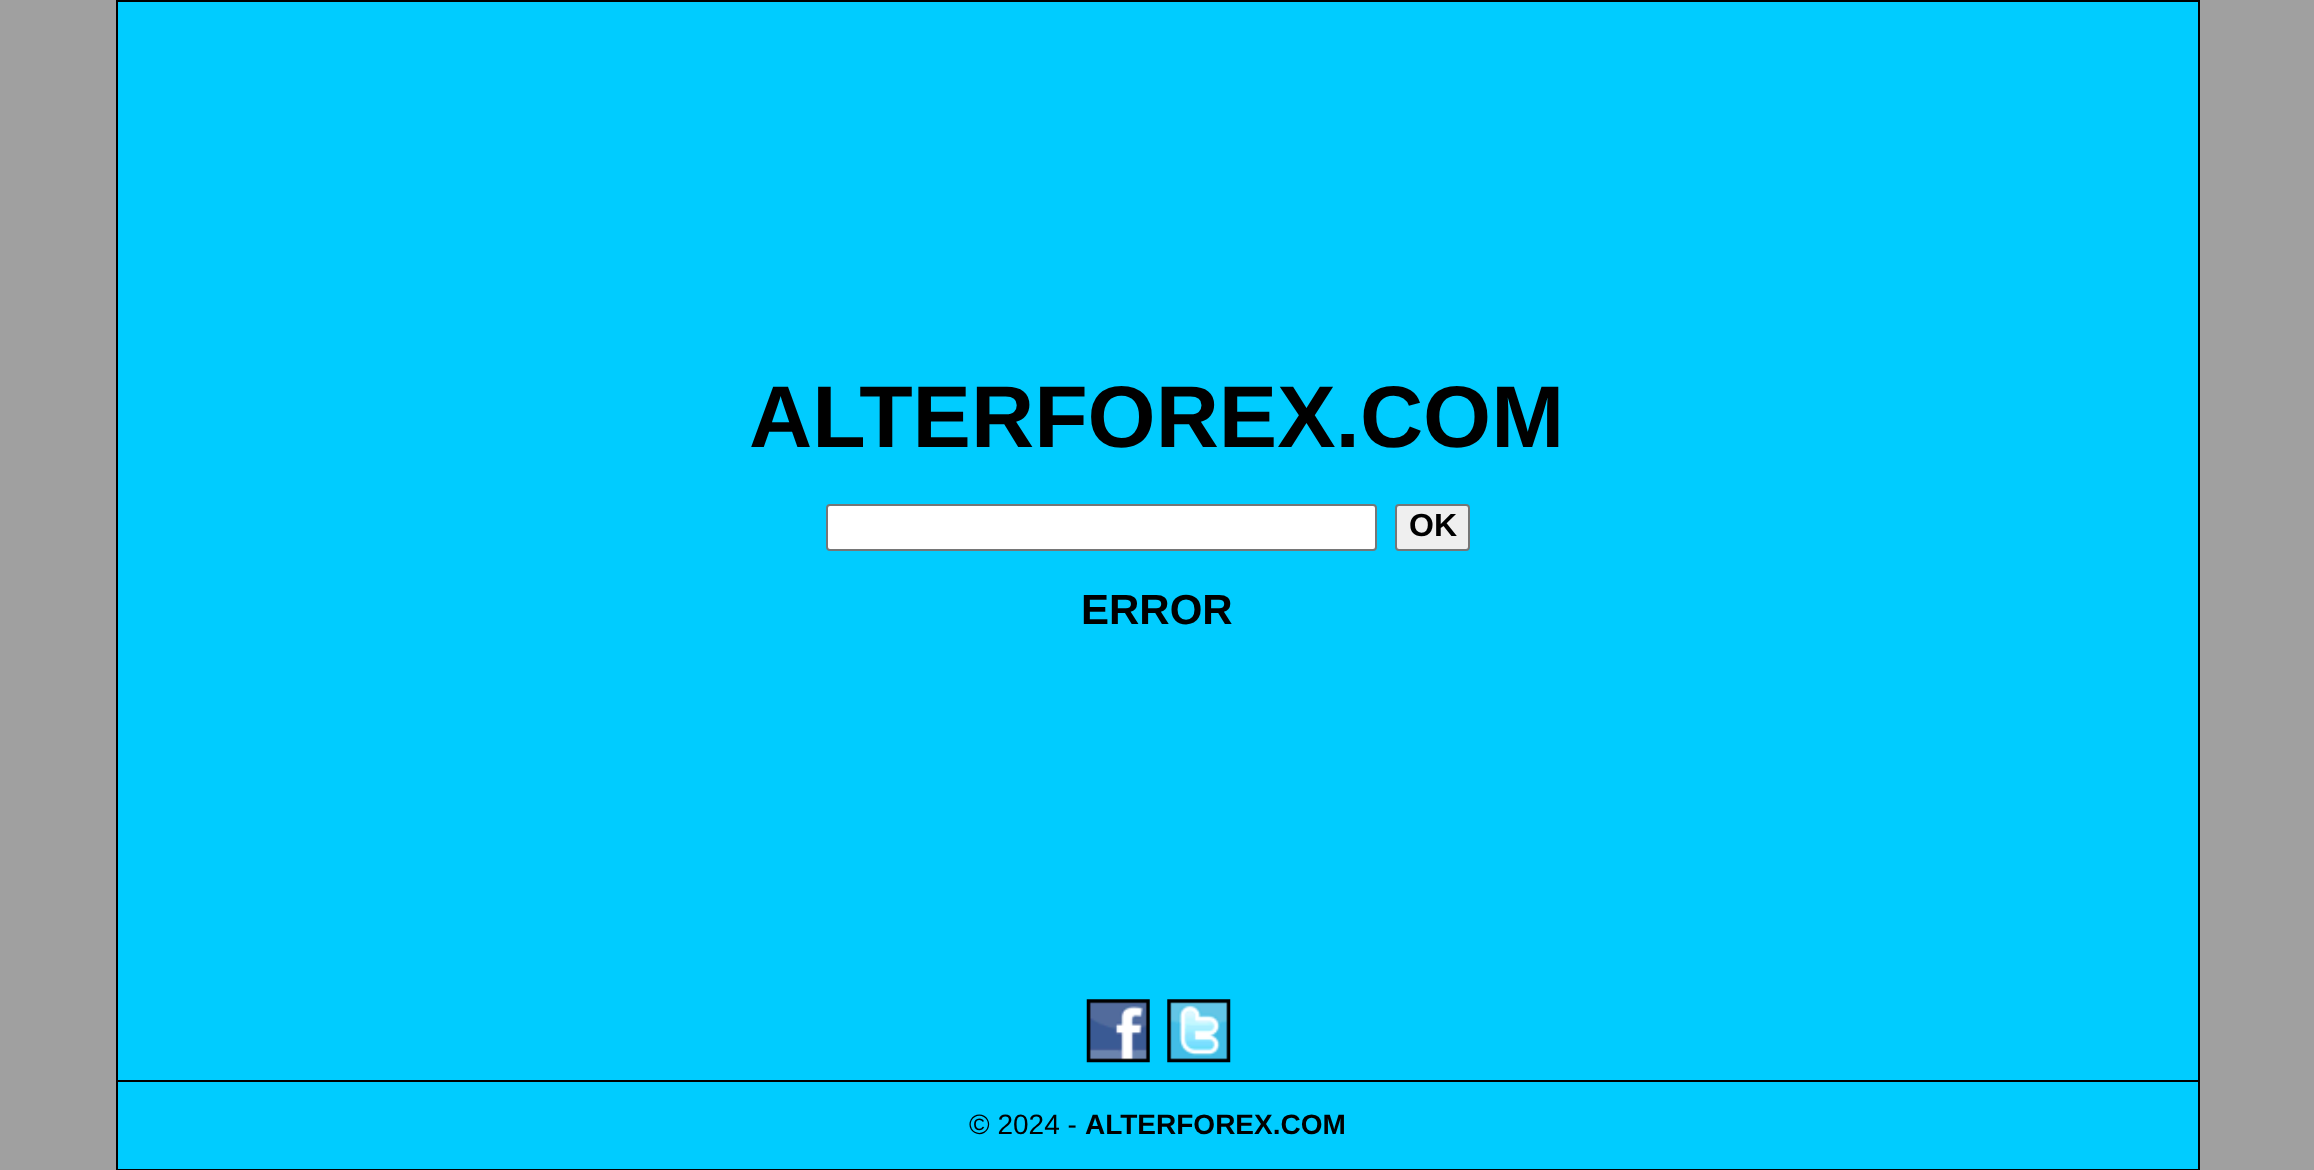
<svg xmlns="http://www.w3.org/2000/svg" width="2314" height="1170">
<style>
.a{font:bold 87.5px Liberation Sans;fill:#000}
.b{font:bold 32px Liberation Sans;fill:#000}
.c{font:bold 42px Liberation Sans;fill:#000}
.d{font:28px Liberation Sans;fill:#000}
.e{font:bold 28px Liberation Sans;fill:#000}
</style>
<rect width="100%" height="100%" fill="#a0a0a0"/>
<path fill="#0cf" d="M118 2h2080v1167H118z"/>
<path fill="#000" d="M116 0h2v1170H116z"/>
<path fill="#000" d="M117 0h2081v2H117z"/>
<rect fill="#fff" stroke="#767676" stroke-width="2" x="827" y="505" width="549" height="45" rx="3"/>
<rect fill="#efefef" stroke="#767676" stroke-width="2" x="1396" y="505" width="73" height="45" rx="3"/>
<image href="1.png" x="1086" y="999" width="64" height="64"/>
<image href="2.png" x="1167" y="999" width="64" height="64"/>
<path fill="#000" d="M117 1080h2081v2H117z"/>
<path fill="#000" d="M117 1169h2081v1H117z"/>
<path fill="#000" d="M2198 0h2v1170H2198z"/>
<text class="a" x="749" y="447">ALTERFOREX.COM</text>
<text class="b" x="1409" y="536">OK</text>
<text class="c" x="1081" y="624">ERROR</text>
<text class="d" x="969" y="1134">© 2024 -</text>
<text class="e" x="1085" y="1134">ALTERFOREX.COM</text>
</svg>
